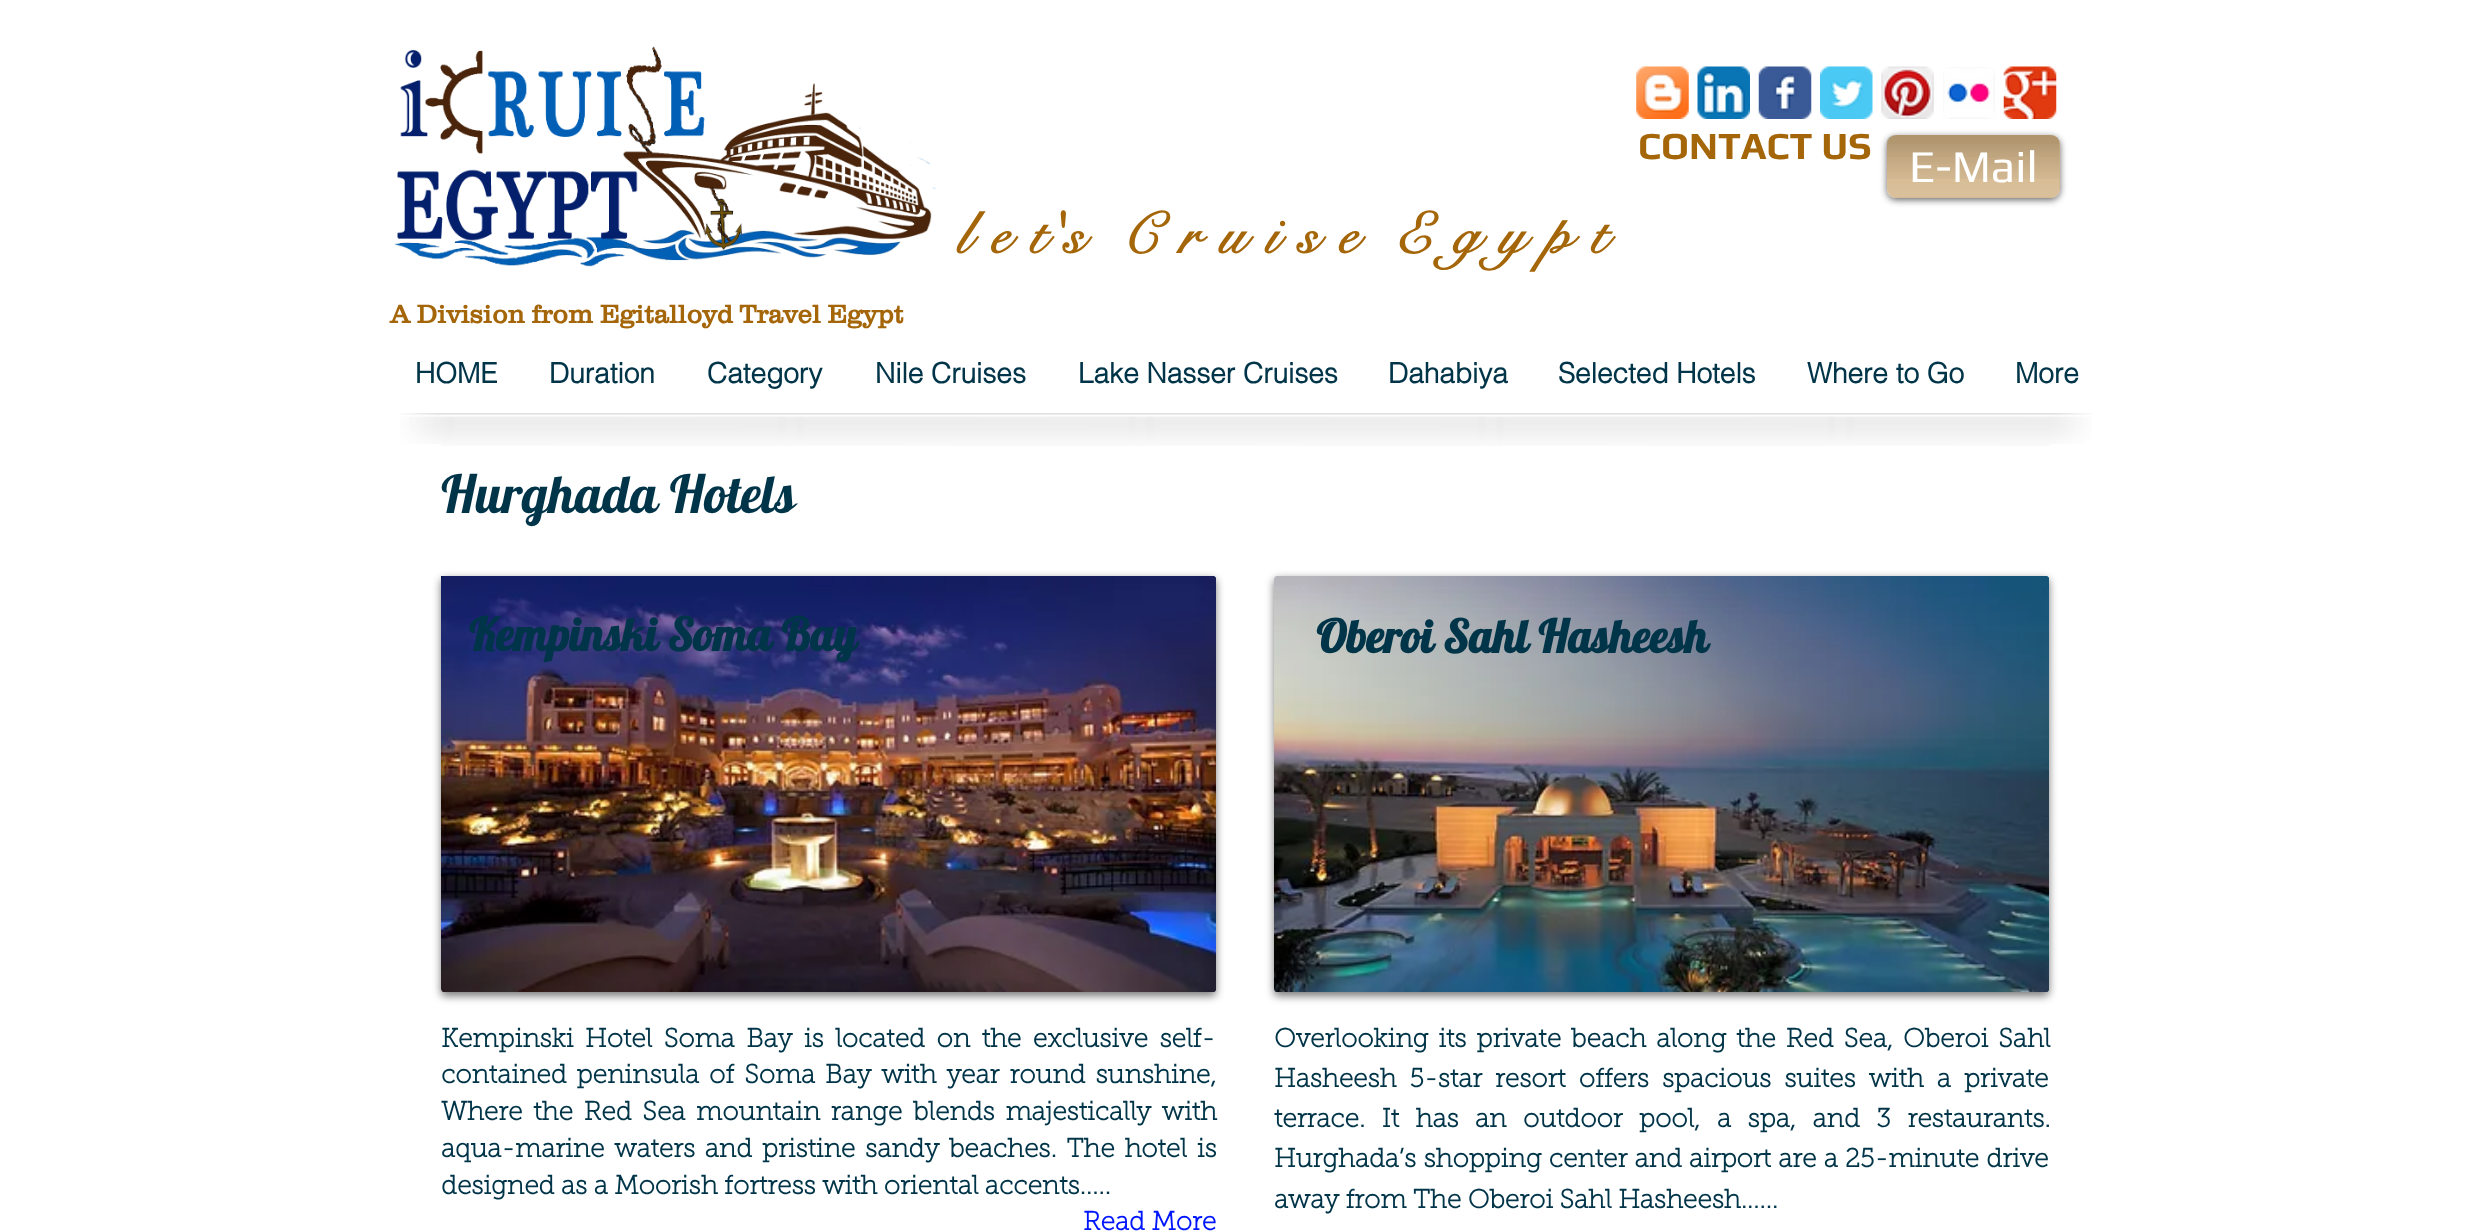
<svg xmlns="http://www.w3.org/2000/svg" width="2492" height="1231">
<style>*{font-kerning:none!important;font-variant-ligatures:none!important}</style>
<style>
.a{font:bold 38.5px Play;fill:#a46609}
.b{font:45.5px Play;fill:#fff}
.c{font:bold 57.75px 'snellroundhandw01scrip';letter-spacing:2.9px;fill:#a46609}
.d{font:bold 26.25px 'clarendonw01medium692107';fill:#a46609}
.e{font:bold 28px helvetica;fill:#003448}
.f{font:52.5px Lobster;fill:#003448}
.g{font:bold 45.5px Lobster;fill:#003448}
.h{font:bold 26.25px 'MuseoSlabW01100';fill:#003448}
.i{font:bold 26.25px 'MuseoSlabW01100';fill:#0016ff}
</style>
<defs>
<clipPath id="clip1"><path d="M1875 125h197v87h-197zm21 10h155c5 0 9 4 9 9v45c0 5-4 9-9 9h-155c-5 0-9-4-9-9v-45c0-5 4-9 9-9z" clip-rule="evenodd"/></clipPath>
<clipPath id="clip2"><path d="M441 576h770v390H441z"/></clipPath>
</defs>
<rect width="100%" height="100%" fill="#fff"/>
<image href="1.png" x="394" y="46" width="542" height="221"/>
<image href="2.png" x="1636" y="66" width="53" height="53"/>
<image href="3.png" x="1697" y="66" width="53" height="53"/>
<image href="4.png" x="1758" y="66" width="54" height="53"/>
<image href="5.png" x="1820" y="66" width="53" height="53"/>
<image href="6.png" x="1881" y="66" width="53" height="53"/>
<image href="7.png" x="1943" y="67" width="52" height="52"/>
<image href="8.png" x="2003" y="66" width="54" height="53"/>
<g clip-path="url(#clip1)">
<rect fill="#00000099" filter="blur(3.5px)" x="1887" y="137" width="173" height="63" rx="9"/>
</g>
<rect fill="#a4660980" x="1887" y="135" width="173" height="63" rx="9"/>
<image href="9.png" x="1886" y="135" width="174" height="44"/>
<image href="10.png" x="1887" y="144" width="173" height="54"/>
<image href="11.png" x="400" y="413" width="41" height="31"/>
<image href="12.png" x="441" y="413" width="1610" height="33"/>
<image href="13.png" x="2051" y="413" width="41" height="31"/>
<g clip-path="url(#clip2)">
<path fill="#070d42" d="M1211 774h-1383v-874h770z"/>
</g>
<rect fill="#00000087" filter="blur(4.5px)" x="441" y="579" width="775" height="417" rx="4"/>
<image href="14.png" x="441" y="576" width="775" height="416"/>
<rect fill="#00000087" filter="blur(4.5px)" x="1274" y="579" width="775" height="417" rx="4"/>
<image href="15.png" x="1274" y="576" width="775" height="416"/>
<text class="a" x="1638" y="159">CONTACT US</text>
<text class="b" x="1909" y="182">E-Mail</text>
<text class="c" xml:space="preserve" x="957" y="253">l e t's  C r u i s e  E g y p t</text>
<text class="d" x="390" y="323">A Division from Egitalloyd Travel Egypt</text>
<text class="e" x="415" y="383">HOME</text>
<text class="e" x="549" y="383">Duration</text>
<text class="e" x="707" y="383">Category</text>
<text class="e" x="875" y="383">Nile Cruises</text>
<text class="e" x="1078" y="383">Lake Nasser Cruises</text>
<text class="e" x="1388" y="383">Dahabiya</text>
<text class="e" x="1558" y="383">Selected Hotels</text>
<text class="e" x="1807" y="383">Where to Go</text>
<text class="e" x="2015" y="383">More</text>
<text class="f" x="441" y="513">Hurghada Hotels</text>
<text class="g" x="469" y="651">Kempinski Soma Bay</text>
<text class="g" x="1316" y="653">Oberoi Sahl Hasheesh</text>
<text class="h" x="441" y="1047" word-spacing="5">Kempinski Hotel Soma Bay is located on the exclusive self-</text>
<text class="h" x="441" y="1083" word-spacing="3.5">contained peninsula of Soma Bay with year round sunshine,</text>
<text class="h" x="441" y="1120" word-spacing="4.25">Where the Red Sea mountain range blends majestically with</text>
<text class="h" x="441" y="1157" word-spacing="3.25">aqua-marine waters and pristine sandy beaches. The hotel is</text>
<text class="h" x="441" y="1194">designed as a Moorish fortress with oriental accents.....</text>
<text class="i" x="1083" y="1230">Read More</text>
<text class="h" x="1274" y="1047" word-spacing="3.5">Overlooking its private beach along the Red Sea, Oberoi Sahl</text>
<text class="h" x="1274" y="1087" word-spacing="6.5">Hasheesh 5-star resort offers spacious suites with a private</text>
<text class="h" x="1274" y="1127" word-spacing="10">terrace. It has an outdoor pool, a spa, and 3 restaurants.</text>
<text class="h" x="1274" y="1167" word-spacing="0.75">Hurghada’s shopping center and airport are a 25-minute drive</text>
<text class="h" x="1274" y="1208">away from The Oberoi Sahl Hasheesh......</text>
</svg>
